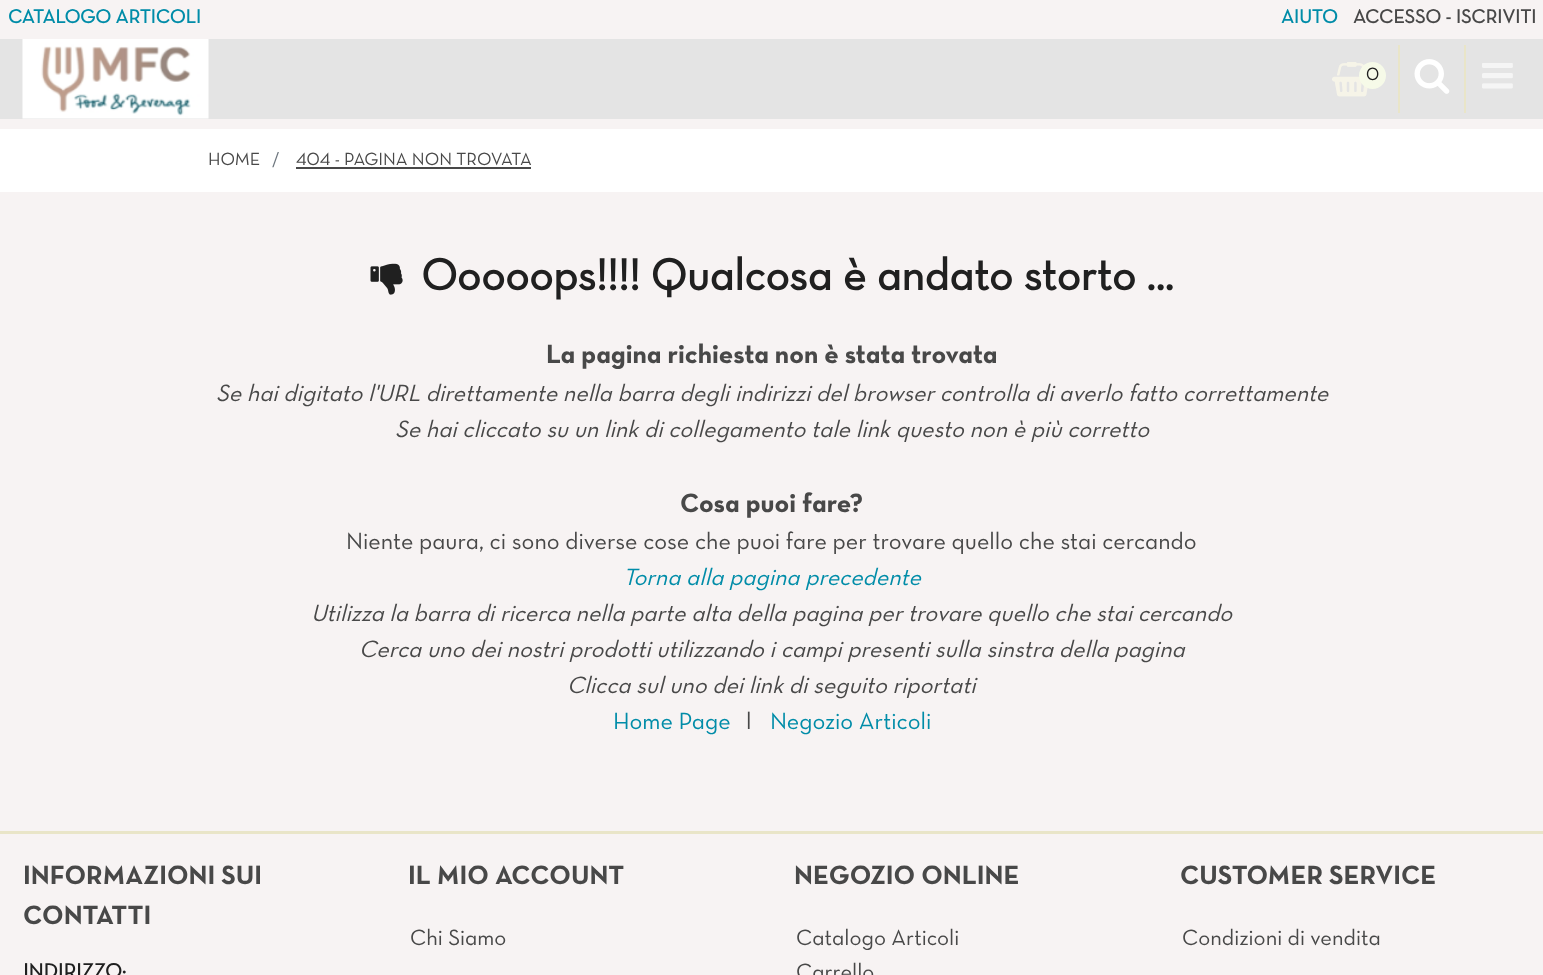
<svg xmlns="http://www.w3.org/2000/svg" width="1543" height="975">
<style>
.a{font:bold 19.5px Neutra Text;fill:#008ca8}
.b{font:bold 19.5px Neutra Text;fill:#484848}
.c{font:18px Neutra Text;fill:#202020}
.d{font:18px Neutra Text;fill:#484848}
.e{font:18px Neutra Text;fill:#6c757d}
.f{font:bold 45px Neutra Text;fill:#202020}
.g{font:bold 27px 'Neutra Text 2';fill:#484848}
.h{font:italic 24px Neutra Text;fill:#484848}
.i{font:24px Neutra Text;fill:#484848}
.j{font:italic 24px Neutra Text;fill:#008ca8}
.k{font:24px Neutra Text;fill:#008ca8}
.l{font:bold 21px Neutra Text;fill:#202020}
.m{font:22.5px Neutra Text;fill:#484848}
</style>
<rect width="100%" height="100%" fill="#f7f3f3"/>
<path fill="#e4e4e4" d="M0 39h1543v80H0z"/>
<image href="1.png" x="22" y="39" width="187" height="80"/>
<image href="2.png" x="1332" y="62" width="36" height="35"/>
<circle fill="#f6fae8" cx="1372.5" cy="75.5" r="13.5"/>
<path fill="#e9e5c8" d="M1464 45h2v68H1464z"/>
<path fill="#e9e5c8" d="M1398 45h2v68H1398z"/>
<image href="3.png" x="1414" y="59" width="36" height="35"/>
<image href="4.png" x="1482" y="63" width="31" height="26"/>
<path fill="#fff" d="M0 129h1543v63H0z"/>
<path fill="#484848" d="M296 167h235v2H296z"/>
<image href="5.png" x="370" y="263" width="33" height="32"/>
<path fill="#e9e5c8" d="M0 831h1543v3H0z"/>
<text class="a" x="8" y="23">CATALOGO ARTICOLI</text>
<text class="a" x="1281" y="23">AIUTO</text>
<text class="b" x="1353" y="23">ACCESSO - ISCRIVITI</text>
<text class="c" x="1366" y="80">0</text>
<text class="d" x="208" y="165">HOME</text>
<text class="e" x="272" y="165">/</text>
<text class="d" x="296" y="165">404 - PAGINA NON TROVATA</text>
<text class="f" x="421" y="290">Ooooops!!!! Qualcosa è andato storto ...</text>
<text class="g" x="546" y="363">La pagina richiesta non è stata trovata</text>
<text class="h" x="216" y="401">Se hai digitato l'URL direttamente nella barra degli indirizzi del browser controlla di averlo fatto correttamente</text>
<text class="h" x="395" y="437">Se hai cliccato su un link di collegamento tale link questo non è più corretto</text>
<text class="g" x="680" y="512">Cosa puoi fare?</text>
<text class="i" x="346" y="549">Niente paura, ci sono diverse cose che puoi fare per trovare quello che stai cercando</text>
<text class="j" x="623" y="585">Torna alla pagina precedente</text>
<text class="h" x="311" y="621">Utilizza la barra di ricerca nella parte alta della pagina per trovare quello che stai cercando</text>
<text class="h" x="359" y="657">Cerca uno dei nostri prodotti utilizzando i campi presenti sulla sinstra della pagina</text>
<text class="h" x="567" y="693">Clicca sul uno dei link di seguito riportati</text>
<text class="k" x="613" y="729">Home Page</text>
<text class="i" x="746" y="729">l</text>
<text class="k" x="770" y="729">Negozio Articoli</text>
<text class="g" x="23" y="884">INFORMAZIONI SUI</text>
<text class="g" x="23" y="924">CONTATTI</text>
<text class="l" x="23" y="978">INDIRIZZO:</text>
<text class="g" x="408" y="884">IL MIO ACCOUNT</text>
<text class="m" x="410" y="945">Chi Siamo</text>
<text class="g" x="794" y="884">NEGOZIO ONLINE</text>
<text class="m" x="796" y="945">Catalogo Articoli</text>
<text class="m" x="796" y="979">Carrello</text>
<text class="g" x="1180" y="884">CUSTOMER SERVICE</text>
<text class="m" x="1182" y="945">Condizioni di vendita</text>
</svg>
